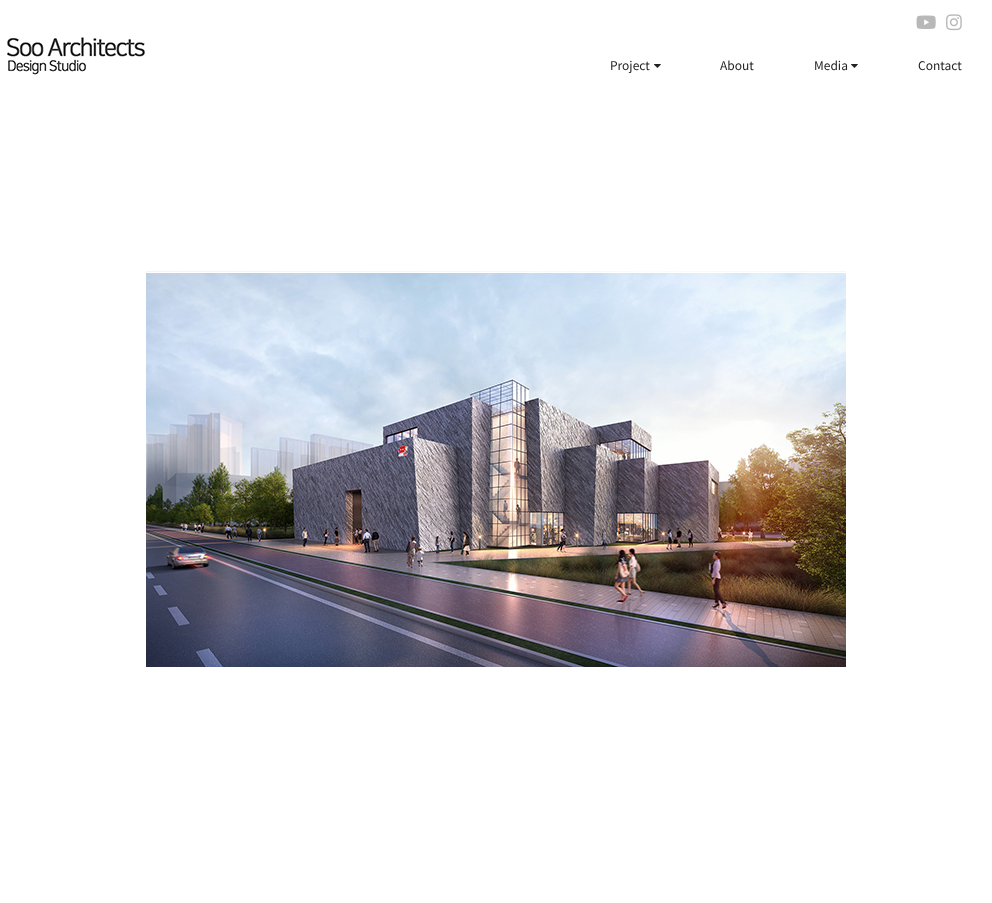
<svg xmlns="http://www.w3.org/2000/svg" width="992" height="903">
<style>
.a{font:12px Noto Sans KR;fill:#222}
</style>
<rect width="100%" height="100%" fill="#fff"/>
<image href="1.png" x="916" y="15" width="20" height="14"/>
<image href="2.png" x="946" y="14" width="16" height="17"/>
<image href="3.png" x="7" y="37" width="138" height="38"/>
<image href="4.png" x="654" y="64" width="7" height="4"/>
<image href="4.png" x="851" y="64" width="7" height="4"/>
<image href="5.png" x="146" y="220" width="700" height="499"/>
<text class="a" x="610" y="70">Project</text>
<text class="a" x="720" y="70">About</text>
<text class="a" x="814" y="70">Media</text>
<text class="a" x="918" y="70">Contact</text>
</svg>
